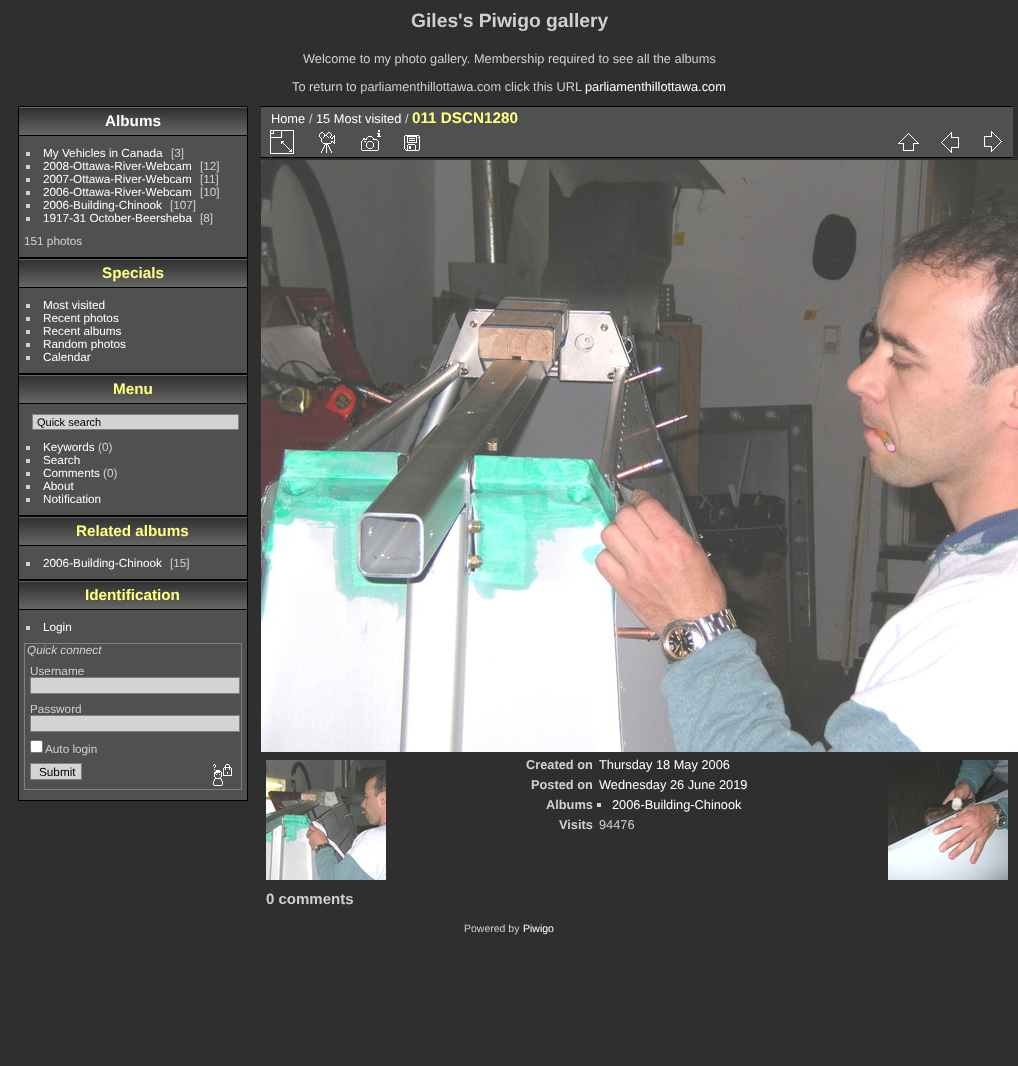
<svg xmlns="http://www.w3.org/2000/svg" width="1018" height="1066">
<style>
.a{font:bold 19.25px Liberation Sans;fill:#d0d0d0}
.b{font:12.8px Liberation Sans;fill:#d0d0d0}
.c{font:12.8px Liberation Sans;fill:#fff}
.d{font:bold 15.25px Liberation Sans;fill:#fff}
.e{font:11.75px Liberation Sans;fill:#fff}
.f{font:11.75px Liberation Sans;fill:#d0d0d0}
.g{font:bold 15.25px Liberation Sans;fill:#ffff80}
.h{font:11px Liberation Sans;fill:#000}
.i{font:italic 11.75px Liberation Sans;fill:#d0d0d0}
.j{font:11.75px Liberation Sans;fill:#000}
.k{font:bold 12.8px Liberation Sans;fill:#d0d0d0}
.l{font:bold 15px Liberation Sans;fill:#d0d0d0}
.m{font:10.5px Liberation Sans;fill:#d0d0d0}
.n{font:10.5px Liberation Sans;fill:#fff}
</style>
<rect width="100%" height="100%" fill="#2f2f2f"/>
<path fill="#505050" d="M19 136h228v121H19z"/>
<path fill="none" stroke="#000" d="M18.5 106.5h229v151H18.5z"/>
<image href="1.png" x="19" y="107" width="228" height="28"/>
<path fill="#000" d="M19 135h228v1H19z"/>
<path fill="#d0d0d0" d="M26 152h4v4H26z"/>
<path fill="#d0d0d0" d="M26 165h4v4H26z"/>
<path fill="#d0d0d0" d="M26 178h4v4H26z"/>
<path fill="#d0d0d0" d="M26 191h4v4H26z"/>
<path fill="#d0d0d0" d="M26 204h4v4H26z"/>
<path fill="#d0d0d0" d="M26 217h4v4H26z"/>
<path fill="#505050" d="M19 288h228v85H19z"/>
<path fill="none" stroke="#000" d="M18.5 258.5h229v115H18.5z"/>
<image href="1.png" x="19" y="259" width="228" height="28"/>
<path fill="#000" d="M19 287h228v1H19z"/>
<path fill="#d0d0d0" d="M26 304h4v4H26z"/>
<path fill="#d0d0d0" d="M26 317h4v4H26z"/>
<path fill="#d0d0d0" d="M26 330h4v4H26z"/>
<path fill="#d0d0d0" d="M26 343h4v4H26z"/>
<path fill="#d0d0d0" d="M26 356h4v4H26z"/>
<path fill="#505050" d="M19 404h228v111H19z"/>
<path fill="none" stroke="#000" d="M18.5 374.5h229v141H18.5z"/>
<image href="1.png" x="19" y="375" width="228" height="28"/>
<path fill="#000" d="M19 403h228v1H19z"/>
<path fill="#d3d3d3" stroke="#808080" d="M32.5 414.5h206v15H32.5z"/>
<path fill="#d0d0d0" d="M26 446h4v4H26z"/>
<path fill="#d0d0d0" d="M26 459h4v4H26z"/>
<path fill="#d0d0d0" d="M26 472h4v4H26z"/>
<path fill="#d0d0d0" d="M26 485h4v4H26z"/>
<path fill="#d0d0d0" d="M26 498h4v4H26z"/>
<path fill="#505050" d="M19 546h228v33H19z"/>
<path fill="none" stroke="#000" d="M18.5 516.5h229v63H18.5z"/>
<image href="1.png" x="19" y="517" width="228" height="28"/>
<path fill="#000" d="M19 545h228v1H19z"/>
<path fill="#d0d0d0" d="M26 562h4v4H26z"/>
<path fill="#505050" d="M19 610h228v190H19z"/>
<path fill="none" stroke="#000" d="M18.5 580.5h229v220H18.5z"/>
<image href="1.png" x="19" y="581" width="228" height="28"/>
<path fill="#000" d="M19 609h228v1H19z"/>
<path fill="#d0d0d0" d="M26 626h4v4H26z"/>
<path fill="none" stroke="#808080" d="M24.5 643.5h217v146H24.5z"/>
<path fill="#d3d3d3" stroke="#808080" d="M30.5 677.5h209v16H30.5z"/>
<path fill="#d3d3d3" stroke="#808080" d="M30.5 715.5h209v16H30.5z"/>
<rect fill="#fff" stroke="#767676" x="30.5" y="740.5" width="12" height="12" rx="1.5"/>
<path fill="#d3d3d3" stroke="#808080" d="M30.5 763.5h51v16H30.5z"/>
<image href="2.png" x="213" y="764" width="19" height="22"/>
<path fill="#505050" d="M261 107h752v50H261z"/>
<path fill="#000" d="M261 157h752v1H261z"/>
<image href="3.png" x="270" y="130" width="24" height="24"/>
<image href="4.png" x="319" y="132" width="16" height="21"/>
<image href="5.png" x="361" y="130" width="20" height="21"/>
<image href="6.png" x="404" y="135" width="16" height="16"/>
<image href="7.png" x="898" y="133" width="21" height="18"/>
<image href="8.png" x="941" y="132" width="18" height="21"/>
<image href="9.png" x="984" y="131" width="18" height="21"/>
<path fill="#000" d="M261 106h752v1H261z"/>
<image href="10.png" x="261" y="160" width="757" height="592"/>
<path fill="#d0d0d0" d="M597 803h4v4H597z"/>
<image href="11.png" x="266" y="760" width="120" height="120"/>
<image href="12.png" x="888" y="760" width="120" height="120"/>
<text class="a" x="411" y="27">Giles's Piwigo gallery</text>
<text class="b" x="303" y="63">Welcome to my photo gallery. Membership required to see all the albums</text>
<text class="b" x="292" y="91">To return to parliamenthillottawa.com click this URL</text>
<text class="c" x="585" y="91">parliamenthillottawa.com</text>
<text class="d" x="105" y="126">Albums</text>
<text class="e" x="43" y="157">My Vehicles in Canada</text>
<text class="f" x="171" y="157">[3]</text>
<text class="e" x="43" y="170">2008-Ottawa-River-Webcam</text>
<text class="f" x="200" y="170">[12]</text>
<text class="e" x="43" y="183">2007-Ottawa-River-Webcam</text>
<text class="f" x="200" y="183">[11]</text>
<text class="e" x="43" y="196">2006-Ottawa-River-Webcam</text>
<text class="f" x="200" y="196">[10]</text>
<text class="e" x="43" y="209">2006-Building-Chinook</text>
<text class="f" x="170" y="209">[107]</text>
<text class="e" x="43" y="222">1917-31 October-Beersheba</text>
<text class="f" x="200" y="222">[8]</text>
<text class="f" x="24" y="245">151 photos</text>
<text class="g" x="102" y="278">Specials</text>
<text class="e" x="43" y="309">Most visited</text>
<text class="e" x="43" y="322">Recent photos</text>
<text class="e" x="43" y="335">Recent albums</text>
<text class="e" x="43" y="348">Random photos</text>
<text class="e" x="43" y="361">Calendar</text>
<text class="g" x="113" y="394">Menu</text>
<text class="h" x="37" y="426">Quick search</text>
<text class="e" x="43" y="451">Keywords</text>
<text class="f" x="98" y="451">(0)</text>
<text class="e" x="43" y="464">Search</text>
<text class="e" x="43" y="477">Comments</text>
<text class="f" x="103" y="477">(0)</text>
<text class="e" x="43" y="490">About</text>
<text class="e" x="43" y="503">Notification</text>
<text class="g" x="76" y="536">Related albums</text>
<text class="e" x="43" y="567">2006-Building-Chinook</text>
<text class="f" x="170" y="567">[15]</text>
<text class="g" x="85" y="600">Identification</text>
<text class="e" x="43" y="631">Login</text>
<text class="i" x="27" y="654">Quick connect</text>
<text class="f" x="30" y="675">Username</text>
<text class="f" x="30" y="713">Password</text>
<text class="f" x="45" y="753">Auto login</text>
<text class="j" x="39" y="776">Submit</text>
<text class="c" x="271" y="123">Home</text>
<text class="b" x="309" y="123">/</text>
<text class="c" x="316" y="123">15 Most visited</text>
<text class="b" x="405" y="123">/</text>
<text class="g" x="412" y="123">011 DSCN1280</text>
<text class="k" x="526" y="769">Created on</text>
<text class="c" x="599" y="769">Thursday 18 May 2006</text>
<text class="k" x="531" y="789">Posted on</text>
<text class="c" x="599" y="789">Wednesday 26 June 2019</text>
<text class="k" x="546" y="809">Albums</text>
<text class="c" x="612" y="809">2006-Building-Chinook</text>
<text class="k" x="559" y="829">Visits</text>
<text class="b" x="599" y="829">94476</text>
<text class="l" x="266" y="904">0 comments</text>
<text class="m" x="464" y="932">Powered by</text>
<text class="n" x="523" y="932">Piwigo</text>
</svg>
